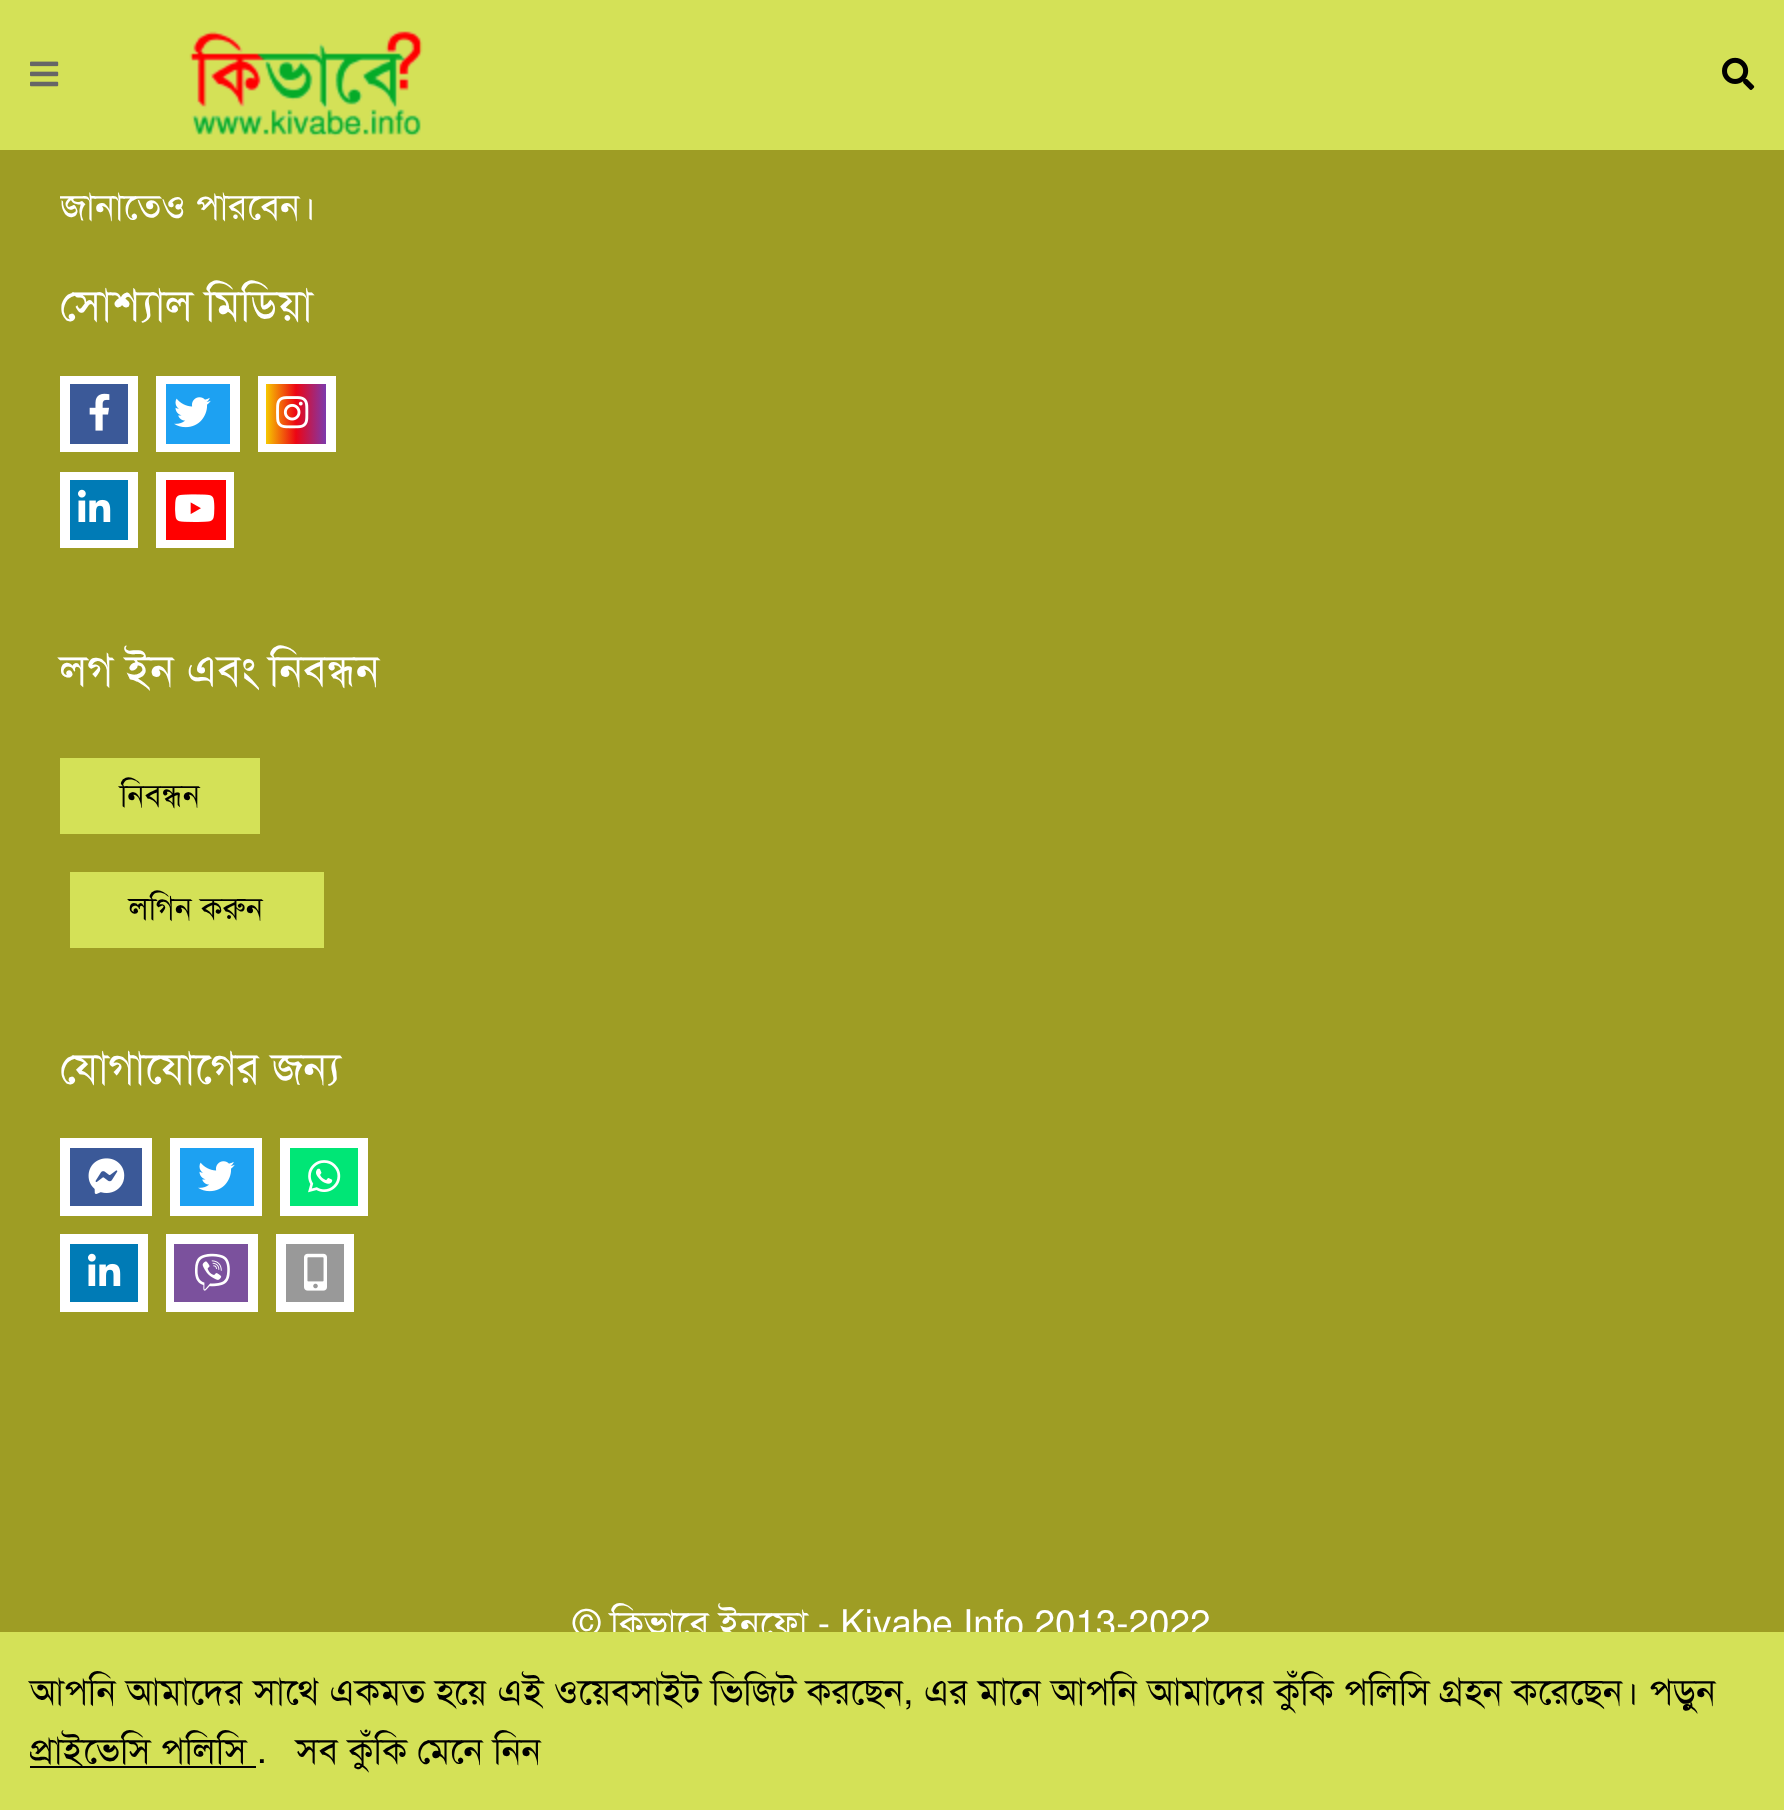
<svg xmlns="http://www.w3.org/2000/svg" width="1784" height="1810">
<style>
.a{font:36.8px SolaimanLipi;fill:#fff}
.b{font:44.25px SolaimanLipi;fill:#fff}
.c{font:32px SolaimanLipi;fill:#000}
.d{font:36.8px SolaimanLipi;fill:#000}
</style>
<defs>
<linearGradient id="g1" gradientUnits="userSpaceOnUse" x1="266" y1="414" x2="326" y2="414"><stop offset="0" stop-color="#f6c800"/><stop offset="0.5" stop-color="#ed0514"/><stop offset="1" stop-color="#7c39ad"/></linearGradient>
<clipPath id="clip1"><path d="M60 0h364v236H60z"/></clipPath>
</defs>
<rect width="100%" height="100%" fill="#9e9d24"/>
<path fill="#d4e157" d="M0 0h1784v150H0z"/>
<image href="1.png" x="30" y="61" width="29" height="26"/>
<image href="2.png" x="189" y="31" width="234" height="106"/>
<image href="3.png" x="1722" y="57" width="33" height="33"/>
<path fill="#fff" d="M60 376h78v76H60z"/>
<path fill="#3b5998" d="M70 384h58v60H70z"/>
<image href="4.png" x="89" y="393" width="21" height="38"/>
<path fill="#fff" d="M156 376h84v76H156z"/>
<path fill="#1da1f2" d="M166 384h64v60H166z"/>
<image href="5.png" x="174" y="397" width="37" height="31"/>
<path fill="#fff" d="M258 376h78v76H258z"/>
<path fill="url(#g1)" d="M266 384h60v60H266z"/>
<image href="6.png" x="276" y="396" width="33" height="33"/>
<path fill="#fff" d="M60 472h78v76H60z"/>
<path fill="#007bb6" d="M70 480h58v60H70z"/>
<image href="7.png" x="78" y="489" width="33" height="33"/>
<path fill="#fff" d="M156 472h78v76H156z"/>
<path fill="#f00" d="M166 480h60v60H166z"/>
<image href="8.png" x="175" y="494" width="40" height="28"/>
<path fill="#d4e157" d="M60 758h200v76H60z"/>
<path fill="#d4e157" d="M70 872h254v76H70z"/>
<path fill="#fff" d="M60 1138h92v78H60z"/>
<path fill="#3b5998" d="M70 1148h72v58H70z"/>
<image href="9.png" x="88" y="1158" width="37" height="36"/>
<path fill="#fff" d="M170 1138h92v78H170z"/>
<path fill="#1da1f2" d="M180 1148h74v58H180z"/>
<image href="5.png" x="198" y="1161" width="37" height="31"/>
<path fill="#fff" d="M280 1138h88v78H280z"/>
<path fill="#00e676" d="M290 1148h68v58H290z"/>
<image href="10.png" x="308" y="1160" width="33" height="33"/>
<path fill="#fff" d="M60 1234h88v78H60z"/>
<path fill="#007bb6" d="M70 1244h68v58H70z"/>
<image href="7.png" x="88" y="1253" width="33" height="33"/>
<path fill="#fff" d="M166 1234h92v78H166z"/>
<path fill="#7b519d" d="M174 1244h74v58H174z"/>
<image href="11.png" x="194" y="1253" width="36" height="38"/>
<path fill="#fff" d="M276 1234h78v78H276z"/>
<path fill="#999" d="M286 1244h58v58H286z"/>
<image href="12.png" x="304" y="1253" width="23" height="38"/>
<g clip-path="url(#clip1)">
<text class="a" x="60" y="219">জানাতেও পারবেন।</text>
</g>
<text class="b" x="60" y="320">সোশ্যাল মিডিয়া</text>
<text class="b" x="60" y="685">লগ ইন এবং নিবন্ধন</text>
<text class="c" x="120" y="806">নিবন্ধন</text>
<text class="c" x="129" y="919">লগিন করুন</text>
<text class="b" x="60" y="1083">যোগাযোগের জন্য</text>
<text class="a" x="573" y="1636">© কিভাবে ইনফো - Kivabe Info 2013-2022</text>
<path fill="#d4e157" d="M0 1632h1784v178H0z"/>
<text class="d" x="30" y="1704">আপনি আমাদের সাথে একমত হয়ে এই ওয়েবসাইট ভিজিট করছেন, এর মানে আপনি আমাদের কুঁকি পলিসি গ্রহন করেছেন। পড়ুন</text>
<path fill="#000" d="M30 1766h226v2H30z"/>
<text class="d" x="30" y="1763">প্রাইভেসি পলিসি .</text>
<text class="d" x="296" y="1763">সব কুঁকি মেনে নিন</text>
</svg>
